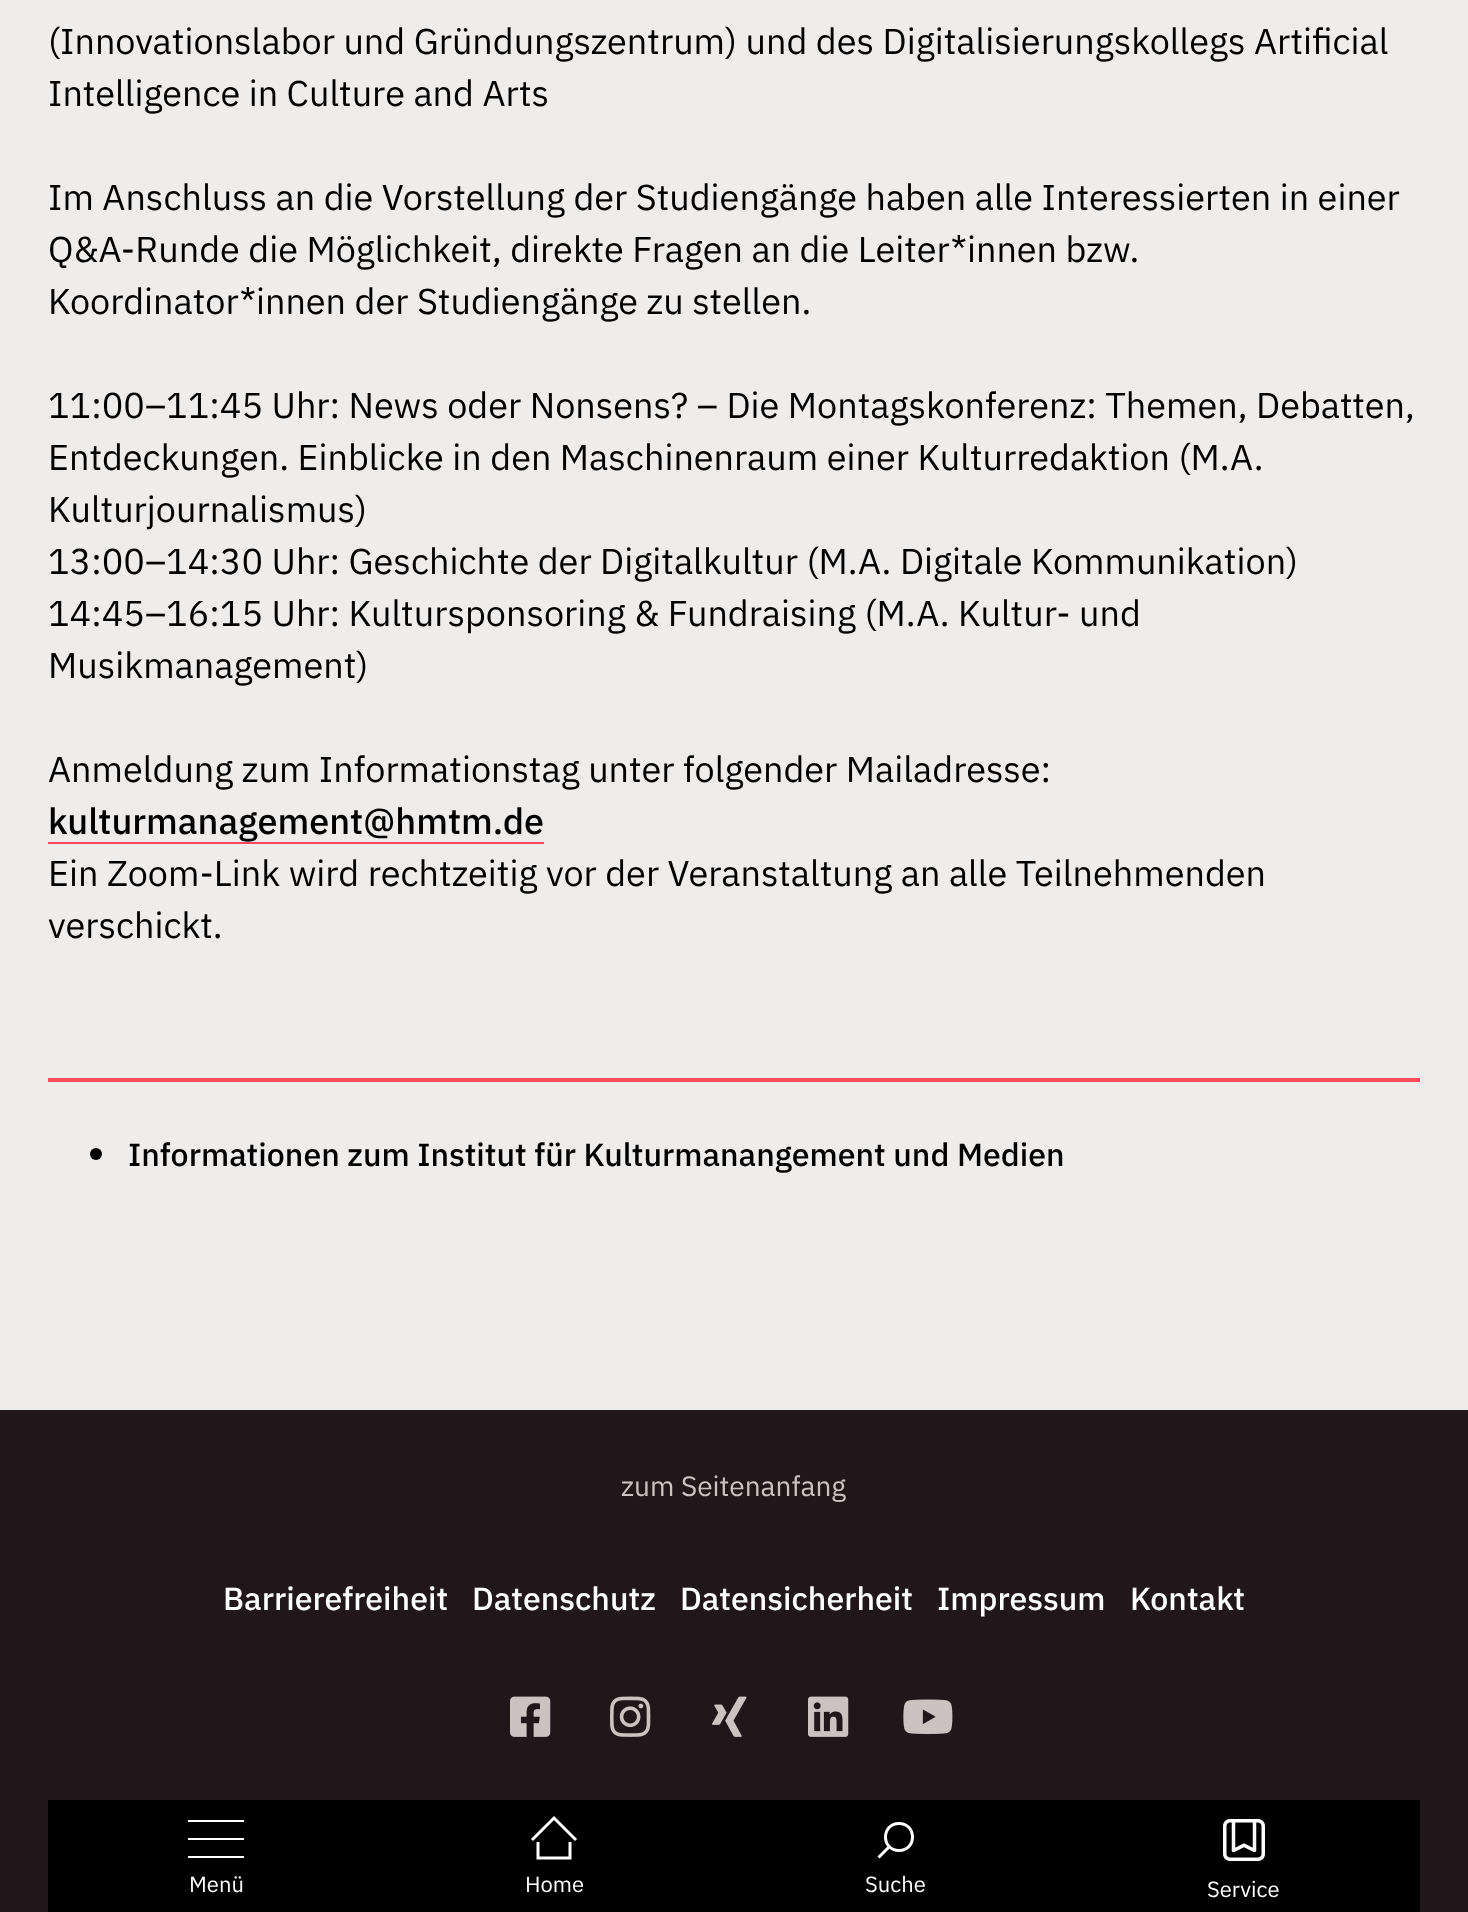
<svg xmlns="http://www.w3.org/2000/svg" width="1468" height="1912">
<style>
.a{font:36px IBM Plex Sans;fill:#000}
.b{font:500 36px IBM Plex Sans;fill:#000}
.c{font:500 32px IBM Plex Sans;fill:#000}
.d{font:28px IBM Plex Sans;fill:#ccc2c2}
.e{font:500 32px IBM Plex Sans;fill:#fff}
.f{font:22px IBM Plex Sans;fill:#fff}
</style>
<rect width="100%" height="100%" fill="#efecec"/>
<path fill="#ff4c5c" d="M48 842h496v2H48z"/>
<path fill="#ff4c5c" d="M48 1078h1372v4H48z"/>
<circle fill="#000" cx="96" cy="1154" r="6"/>
<path fill="#21161a" d="M0 1410h1468v502H0z"/>
<image href="1.png" x="510" y="1696" width="41" height="41"/>
<image href="2.png" x="610" y="1696" width="41" height="41"/>
<image href="3.png" x="712" y="1696" width="35" height="41"/>
<image href="4.png" x="808" y="1696" width="41" height="41"/>
<image href="5.png" x="903" y="1699" width="50" height="35"/>
<path fill="#000" d="M48 1800h1372v112H48z"/>
<path fill="#fff" d="M188 1820h56v2H188z"/>
<path fill="#fff" d="M188 1838h56v2H188z"/>
<path fill="#fff" d="M188 1856h56v2H188z"/>
<path fill="none" stroke="#fff" stroke-width="3" d="M570 1842v16h-32v-16m-6-2l22-22l22 22"/>
<path fill="none" stroke="#fff" stroke-width="3" d="M899 1823.5c-18 0-18 27 0 27c18 0 18-27 0-27zm-10 23.5l-10.5 10.5"/>
<image href="6.png" x="1223" y="1819" width="42" height="42"/>
<text class="a" x="48" y="54">(Innovationslabor und Gründungszentrum) und des Digitalisierungskollegs Artificial</text>
<text class="a" x="48" y="106">Intelligence in Culture and Arts</text>
<text class="a" x="48" y="210">Im Anschluss an die Vorstellung der Studiengänge haben alle Interessierten in einer</text>
<text class="a" x="48" y="262">Q&amp;A-Runde die Möglichkeit, direkte Fragen an die Leiter*innen bzw.</text>
<text class="a" x="48" y="314">Koordinator*innen der Studiengänge zu stellen.</text>
<text class="a" x="48" y="418">11:00–11:45 Uhr: News oder Nonsens? – Die Montagskonferenz: Themen, Debatten,</text>
<text class="a" x="48" y="470">Entdeckungen. Einblicke in den Maschinenraum einer Kulturredaktion (M.A.</text>
<text class="a" x="48" y="522">Kulturjournalismus)</text>
<text class="a" x="48" y="574">13:00–14:30 Uhr: Geschichte der Digitalkultur (M.A. Digitale Kommunikation)</text>
<text class="a" x="48" y="626">14:45–16:15 Uhr: Kultursponsoring &amp; Fundraising (M.A. Kultur- und</text>
<text class="a" x="48" y="678">Musikmanagement)</text>
<text class="a" x="48" y="782">Anmeldung zum Informationstag unter folgender Mailadresse:</text>
<text class="b" x="48" y="834">kulturmanagement@hmtm.de</text>
<text class="a" x="48" y="886">Ein Zoom-Link wird rechtzeitig vor der Veranstaltung an alle Teilnehmenden</text>
<text class="a" x="48" y="938">verschickt.</text>
<text class="c" x="128" y="1166">Informationen zum Institut für Kulturmanangement und Medien</text>
<text class="d" x="621" y="1496">zum Seitenanfang</text>
<text class="e" x="223" y="1610">Barrierefreiheit</text>
<text class="e" x="472" y="1610">Datenschutz</text>
<text class="e" x="680" y="1610">Datensicherheit</text>
<text class="e" x="937" y="1610">Impressum</text>
<text class="e" x="1130" y="1610">Kontakt</text>
<text class="f" x="189" y="1892">Menü</text>
<text class="f" x="525" y="1892">Home</text>
<text class="f" x="865" y="1892">Suche</text>
<text class="f" x="1207" y="1897">Service</text>
</svg>
